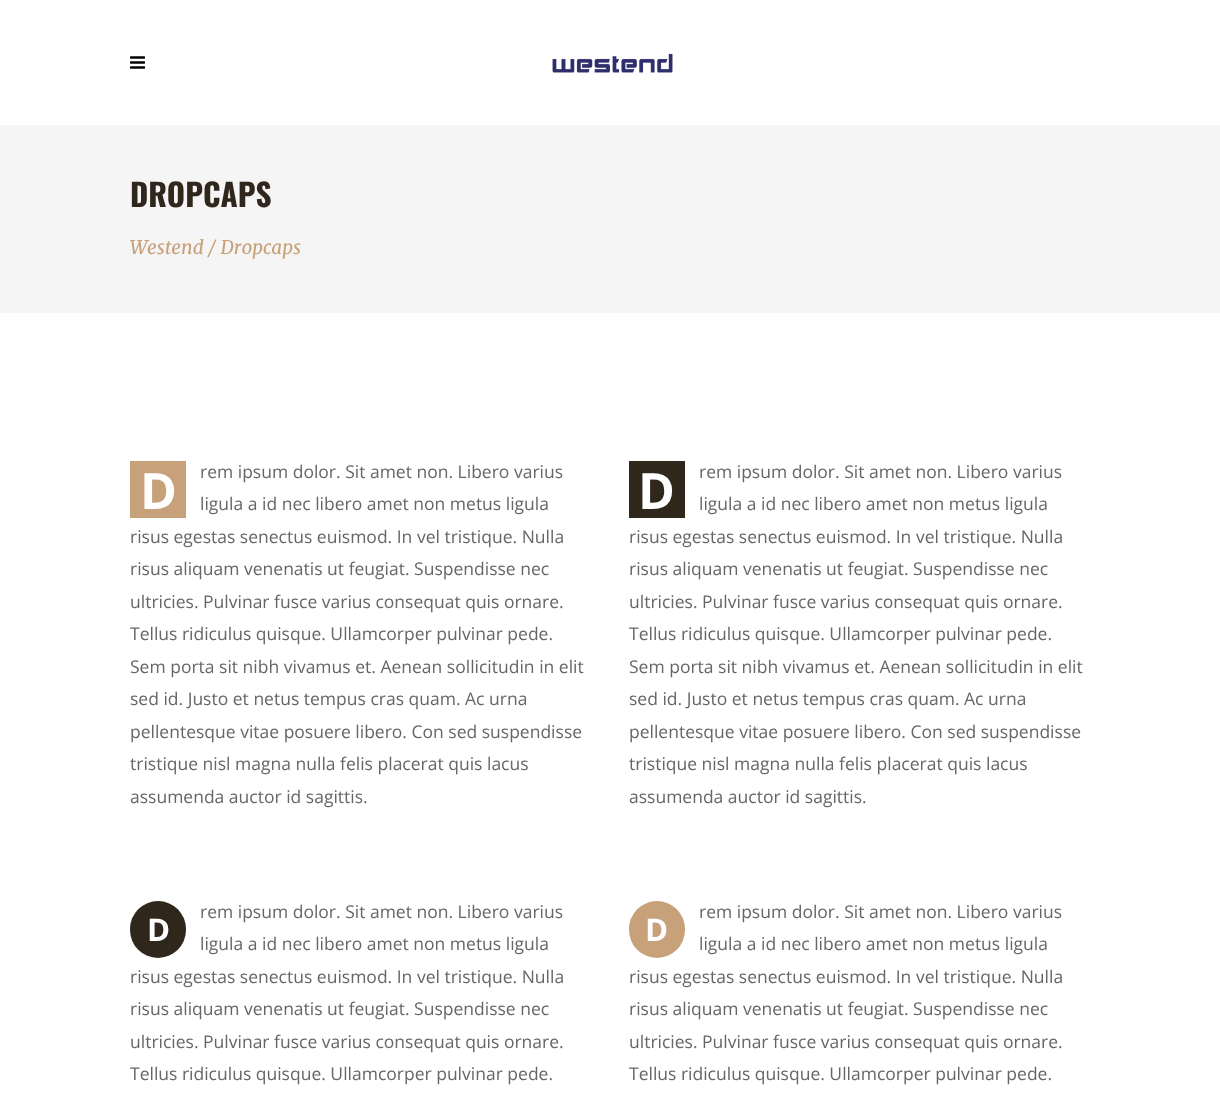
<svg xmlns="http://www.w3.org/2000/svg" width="1220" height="1096">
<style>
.a{font:bold 31.25px Oswald;fill:#30271c}
.b{font:italic 18.75px Merriweather;fill:#c7a17a}
.c{font:bold 50px Open Sans;fill:#fff}
.d{font:17.5px Open Sans;fill:#666}
.e{font:bold 31.25px Open Sans;fill:#fff}
</style>
<rect width="100%" height="100%" fill="#fff"/>
<image href="1.png" x="130" y="56" width="15" height="13"/>
<image href="2.png" x="552" y="53" width="121" height="20"/>
<path fill="#f5f5f5" d="M0 125h1220v188H0z"/>
<path fill="#c7a17a" d="M130 461h56v57H130z"/>
<path fill="#30271c" d="M629 461h56v57H629z"/>
<rect fill="#30271c" x="130" y="901" width="56" height="57" rx="28"/>
<rect fill="#c7a17a" x="629" y="901" width="56" height="57" rx="28"/>
<text class="a" x="130" y="207">DROPCAPS</text>
<text class="b" x="130" y="254">Westend / Dropcaps</text>
<text class="c" x="140" y="509">D</text>
<text class="d" x="200" y="478">rem ipsum dolor. Sit amet non. Libero varius</text>
<text class="d" x="200" y="510">ligula a id nec libero amet non metus ligula</text>
<text class="d" x="130" y="543">risus egestas senectus euismod. In vel tristique. Nulla</text>
<text class="d" x="130" y="575">risus aliquam venenatis ut feugiat. Suspendisse nec</text>
<text class="d" x="130" y="608">ultricies. Pulvinar fusce varius consequat quis ornare.</text>
<text class="d" x="130" y="640">Tellus ridiculus quisque. Ullamcorper pulvinar pede.</text>
<text class="d" x="130" y="673">Sem porta sit nibh vivamus et. Aenean sollicitudin in elit</text>
<text class="d" x="130" y="705">sed id. Justo et netus tempus cras quam. Ac urna</text>
<text class="d" x="130" y="738">pellentesque vitae posuere libero. Con sed suspendisse</text>
<text class="d" x="130" y="770">tristique nisl magna nulla felis placerat quis lacus</text>
<text class="d" x="130" y="803">assumenda auctor id sagittis.</text>
<text class="c" x="638" y="509">D</text>
<text class="d" x="699" y="478">rem ipsum dolor. Sit amet non. Libero varius</text>
<text class="d" x="699" y="510">ligula a id nec libero amet non metus ligula</text>
<text class="d" x="629" y="543">risus egestas senectus euismod. In vel tristique. Nulla</text>
<text class="d" x="629" y="575">risus aliquam venenatis ut feugiat. Suspendisse nec</text>
<text class="d" x="629" y="608">ultricies. Pulvinar fusce varius consequat quis ornare.</text>
<text class="d" x="629" y="640">Tellus ridiculus quisque. Ullamcorper pulvinar pede.</text>
<text class="d" x="629" y="673">Sem porta sit nibh vivamus et. Aenean sollicitudin in elit</text>
<text class="d" x="629" y="705">sed id. Justo et netus tempus cras quam. Ac urna</text>
<text class="d" x="629" y="738">pellentesque vitae posuere libero. Con sed suspendisse</text>
<text class="d" x="629" y="770">tristique nisl magna nulla felis placerat quis lacus</text>
<text class="d" x="629" y="803">assumenda auctor id sagittis.</text>
<text class="d" x="200" y="918">rem ipsum dolor. Sit amet non. Libero varius</text>
<text class="e" x="147" y="941">D</text>
<text class="d" x="200" y="950">ligula a id nec libero amet non metus ligula</text>
<text class="d" x="130" y="983">risus egestas senectus euismod. In vel tristique. Nulla</text>
<text class="d" x="130" y="1015">risus aliquam venenatis ut feugiat. Suspendisse nec</text>
<text class="d" x="130" y="1048">ultricies. Pulvinar fusce varius consequat quis ornare.</text>
<text class="d" x="130" y="1080">Tellus ridiculus quisque. Ullamcorper pulvinar pede.</text>
<text class="d" x="699" y="918">rem ipsum dolor. Sit amet non. Libero varius</text>
<text class="e" x="645" y="941">D</text>
<text class="d" x="699" y="950">ligula a id nec libero amet non metus ligula</text>
<text class="d" x="629" y="983">risus egestas senectus euismod. In vel tristique. Nulla</text>
<text class="d" x="629" y="1015">risus aliquam venenatis ut feugiat. Suspendisse nec</text>
<text class="d" x="629" y="1048">ultricies. Pulvinar fusce varius consequat quis ornare.</text>
<text class="d" x="629" y="1080">Tellus ridiculus quisque. Ullamcorper pulvinar pede.</text>
</svg>
